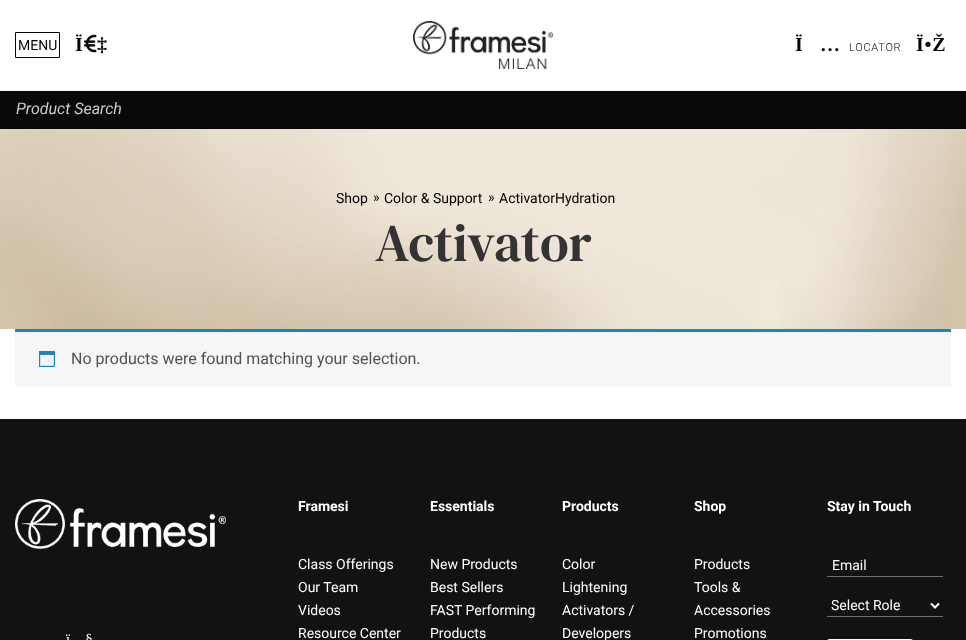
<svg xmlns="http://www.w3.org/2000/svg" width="966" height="640">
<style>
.a{font:14px Roboto;fill:#080808}
.b{font:bold 20px Liberation Serif;letter-spacing:0.75px;fill:#080808}
.c{font:300 11px Roboto;letter-spacing:0.75px;fill:#080808}
.d{font:italic 16px Roboto;fill:#ccc}
.e{font:14px Roboto;fill:#000}
.f{font:53px DM Serif Text;fill:#333}
.g{font:16px Roboto;fill:#515151}
.h{font:15px Liberation Serif;fill:#fff}
.i{font:bold 14px Roboto;fill:#fff}
.j{font:14px Roboto;fill:#fff}
</style>
<rect width="100%" height="100%" fill="#fff"/>
<path fill="none" stroke="#080808" d="M15.5 32.5h44v25H15.5z"/>
<image href="1.png" x="84" y="34" width="13" height="19"/>
<image href="2.png" x="413" y="21" width="140" height="48"/>
<path fill="#f8f8f8" d="M0 90h966v1H0z"/>
<path fill="#080808" d="M0 91h966v38H0z"/>
<image href="3.png" x="0" y="129" width="966" height="200"/>
<path fill="#f6f5f8" d="M15 332h936v55H15z"/>
<path fill="#1e85be" d="M15 329h936v3H15z"/>
<image href="4.png" x="39" y="351" width="16" height="16"/>
<path fill="#121212" d="M0 419h966v221H0z"/>
<image href="5.png" x="15" y="499" width="211" height="50"/>
<path fill="#707070" d="M827 576h116v1H827z"/>
<path fill="#707070" d="M827 616h116v1H827z"/>
<path fill="none" stroke="#fff" stroke-width="2" d="M931 603.5l4 4l4-4"/>
<rect fill="#fff" x="827" y="639" width="86" height="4" rx="3"/>
<text class="a" x="18" y="50">MENU</text>
<text class="b" x="75" y="51">Ï</text>
<text class="b" x="97" y="51">‡</text>
<text class="b" x="795" y="51">Ï</text>
<text class="b" x="820" y="51">…</text>
<text class="c" x="849" y="51">LOCATOR</text>
<text class="b" x="916" y="51">Ï•Ž</text>
<text class="d" x="16" y="114">Product Search</text>
<text class="e" x="336" y="203">Shop</text>
<text class="e" x="373" y="202">»</text>
<text class="e" x="384" y="203">Color &amp; Support</text>
<text class="e" x="488" y="202">»</text>
<text class="e" x="499" y="203">ActivatorHydration</text>
<text class="f" x="375" y="261">Activator</text>
<text class="g" x="71" y="364">No products were found matching your selection.</text>
<text class="h" x="66" y="644">ï…§</text>
<text class="i" x="298" y="511">Framesi</text>
<text class="j" x="298" y="569">Class Offerings</text>
<text class="j" x="298" y="592">Our Team</text>
<text class="j" x="298" y="615">Videos</text>
<text class="j" x="298" y="638">Resource Center</text>
<text class="i" x="430" y="511">Essentials</text>
<text class="j" x="430" y="569">New Products</text>
<text class="j" x="430" y="592">Best Sellers</text>
<text class="j" x="430" y="615">FAST Performing</text>
<text class="j" x="430" y="638">Products</text>
<text class="i" x="562" y="511">Products</text>
<text class="j" x="562" y="569">Color</text>
<text class="j" x="562" y="592">Lightening</text>
<text class="j" x="562" y="615">Activators /</text>
<text class="j" x="562" y="638">Developers</text>
<text class="i" x="694" y="511">Shop</text>
<text class="j" x="694" y="569">Products</text>
<text class="j" x="694" y="592">Tools &amp;</text>
<text class="j" x="694" y="615">Accessories</text>
<text class="j" x="694" y="638">Promotions</text>
<text class="i" x="827" y="511">Stay in Touch</text>
<text class="j" x="832" y="570">Email</text>
<text class="j" x="831" y="610">Select Role</text>
</svg>
